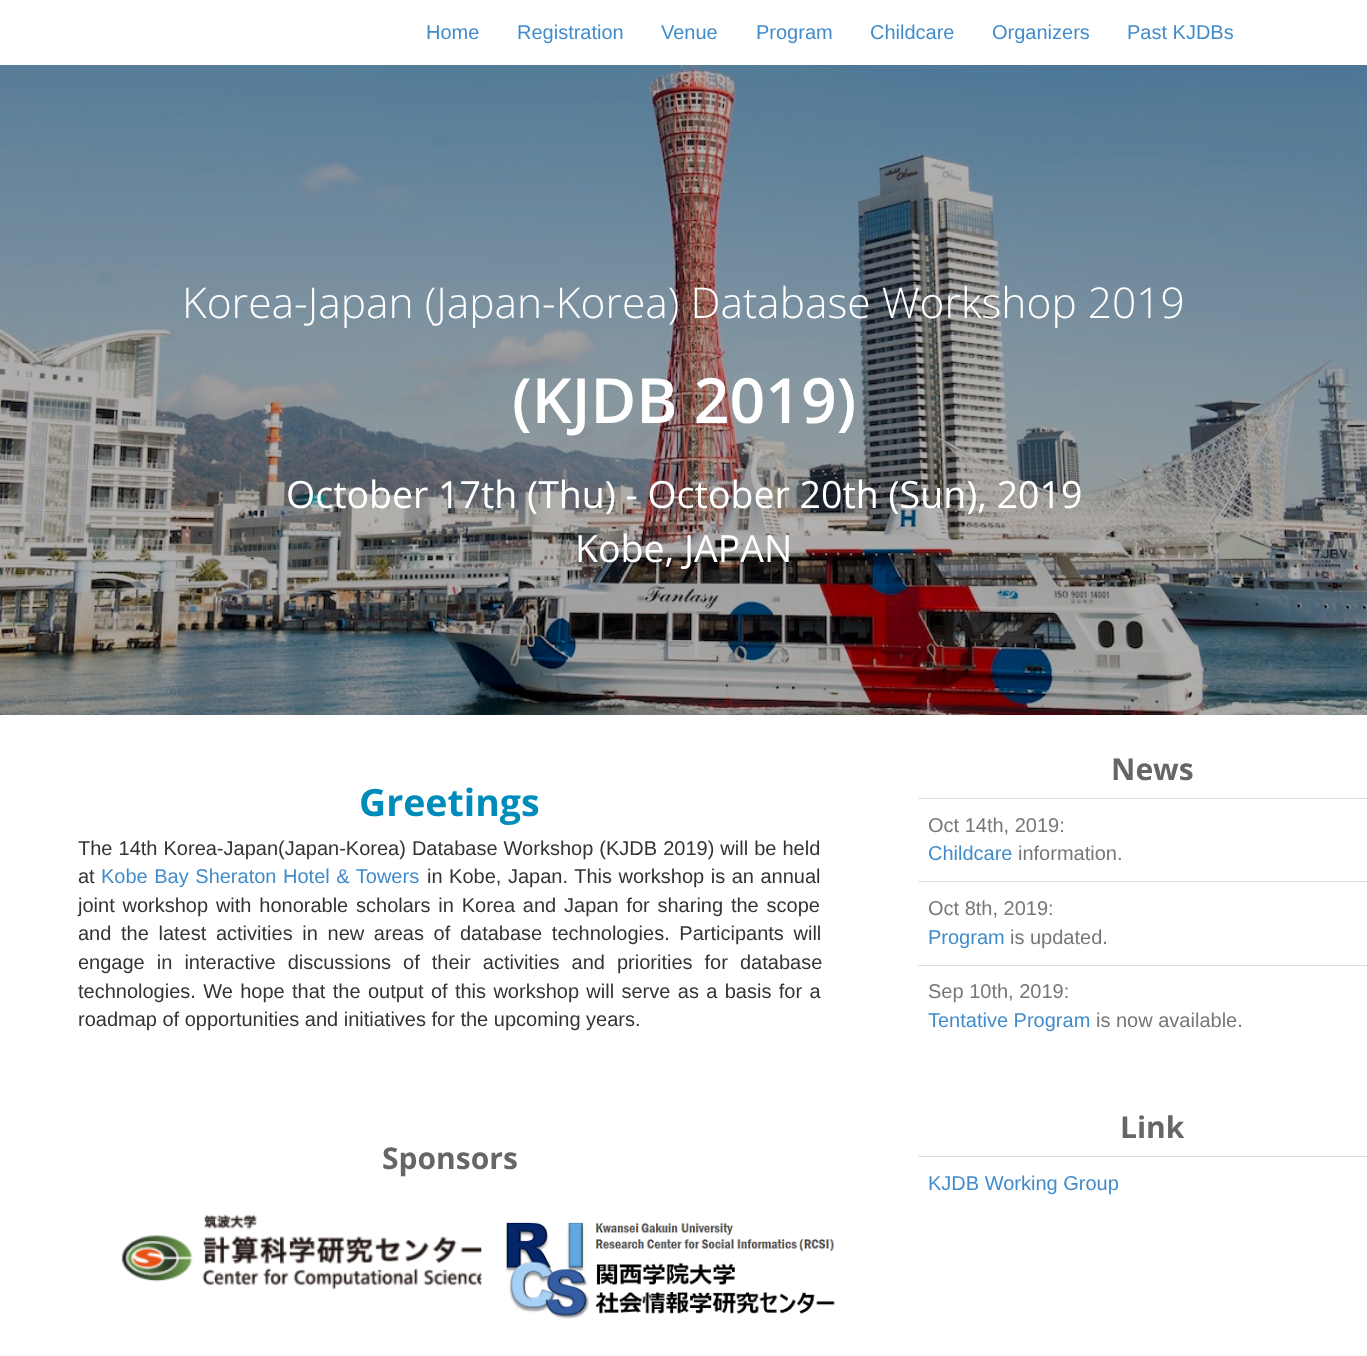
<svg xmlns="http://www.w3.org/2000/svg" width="1367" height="1356">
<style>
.a{font:20px Liberation Sans;fill:#428bca}
.b{font:300 42.5px Open Sans;fill:#fff}
.c{font:600 62.5px Open Sans;fill:#fff}
.d{font:37.5px Open Sans;fill:#fff}
.e{font:bold 37.5px Open Sans;fill:#008cba}
.f{font:20px Liberation Sans;fill:#333}
.g{font:bold 30px Open Sans;fill:#666}
.h{font:20px Liberation Sans;fill:#777}
</style>
<rect width="100%" height="100%" fill="#fff"/>
<image href="1.png" x="0" y="65" width="1367" height="650"/>
<image href="2.png" x="121" y="1214" width="361" height="76"/>
<image href="3.png" x="481" y="1222" width="354" height="97"/>
<path fill="#ddd" d="M918 798h449v1H918z"/>
<path fill="#ddd" d="M918 881h449v1H918z"/>
<path fill="#ddd" d="M918 965h449v1H918z"/>
<path fill="#ddd" d="M918 1156h449v1H918z"/>
<text class="a" x="426" y="39">Home</text>
<text class="a" x="517" y="39">Registration</text>
<text class="a" x="661" y="39">Venue</text>
<text class="a" x="756" y="39">Program</text>
<text class="a" x="870" y="39">Childcare</text>
<text class="a" x="992" y="39">Organizers</text>
<text class="a" x="1127" y="39">Past KJDBs</text>
<text class="b" x="182" y="318">Korea-Japan (Japan-Korea) Database Workshop 2019</text>
<text class="c" x="512" y="423">(KJDB 2019)</text>
<text class="d" x="286" y="508">October 17th (Thu) - October 20th (Sun), 2019</text>
<text class="d" x="575" y="562">Kobe, JAPAN</text>
<text class="e" x="359" y="816">Greetings</text>
<text class="f" x="78" y="855" word-spacing="0.5">The 14th Korea-Japan(Japan-Korea) Database Workshop (KJDB 2019) will be held</text>
<text class="f" x="78" y="883">at</text>
<text class="a" x="101" y="883" word-spacing="1">Kobe Bay Sheraton Hotel &amp; Towers</text>
<text class="f" x="427" y="883" word-spacing="1">in Kobe, Japan. This workshop is an annual</text>
<text class="f" x="78" y="912" word-spacing="2.25">joint workshop with honorable scholars in Korea and Japan for sharing the scope</text>
<text class="f" x="78" y="940" word-spacing="4.1">and the latest activities in new areas of database technologies. Participants will</text>
<text class="f" x="78" y="969" word-spacing="6.5">engage in interactive discussions of their activities and priorities for database</text>
<text class="f" x="78" y="998" word-spacing="1.8">technologies. We hope that the output of this workshop will serve as a basis for a</text>
<text class="f" x="78" y="1026">roadmap of opportunities and initiatives for the upcoming years.</text>
<text class="g" x="382" y="1169">Sponsors</text>
<text class="g" x="1111" y="780">News</text>
<text class="h" x="928" y="832">Oct 14th, 2019:</text>
<text class="a" x="928" y="860">Childcare</text>
<text class="h" x="1018" y="860">information.</text>
<text class="h" x="928" y="915">Oct 8th, 2019:</text>
<text class="a" x="928" y="944">Program</text>
<text class="h" x="1010" y="944">is updated.</text>
<text class="h" x="928" y="998">Sep 10th, 2019:</text>
<text class="a" x="928" y="1027">Tentative Program</text>
<text class="h" x="1096" y="1027">is now available.</text>
<text class="g" x="1120" y="1138">Link</text>
<text class="a" x="928" y="1190">KJDB Working Group</text>
</svg>
